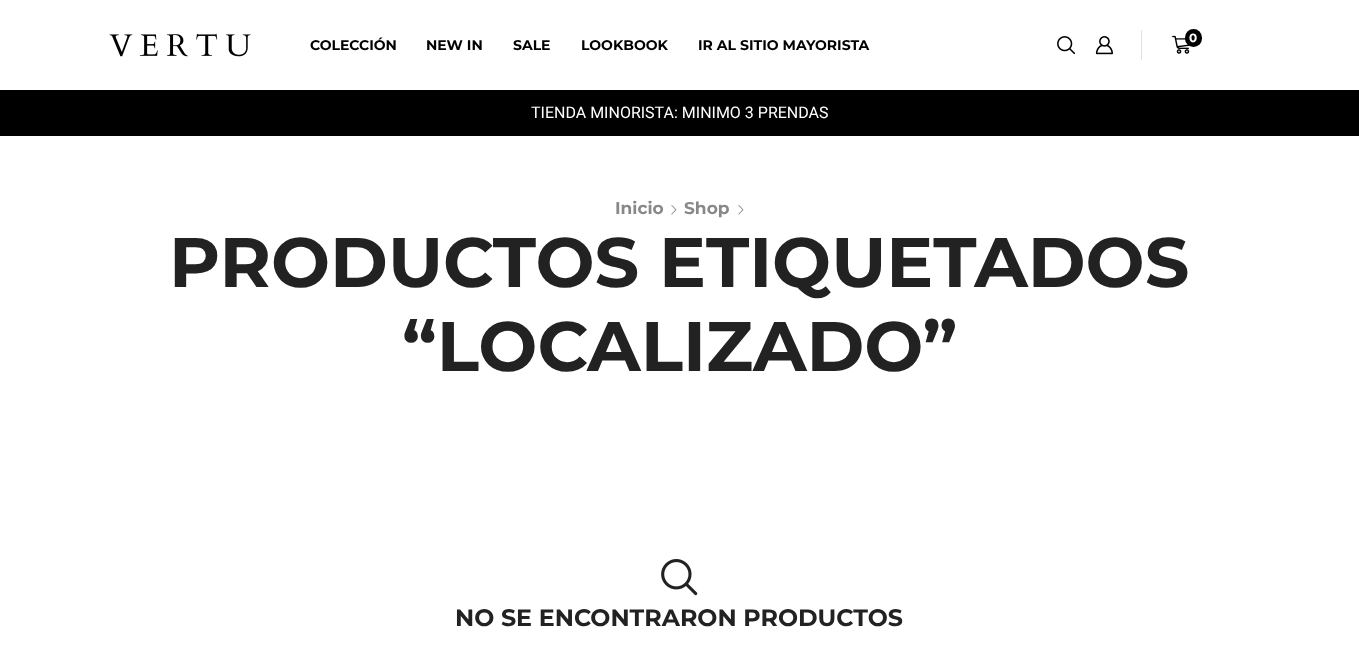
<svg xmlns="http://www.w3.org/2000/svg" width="1359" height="648">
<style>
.a{font:bold 14px Montserrat;fill:#000}
.b{font:bold 12px Montserrat;fill:#fff}
.c{font:16px Roboto;fill:#fff}
.d{font:bold 17px Montserrat;fill:#888}
.e{font:bold 70px Montserrat;fill:#222}
.f{font:bold 23.75px Montserrat;fill:#222}
</style>
<rect width="100%" height="100%" fill="#fff"/>
<image href="1.png" x="109" y="33" width="142" height="24"/>
<image href="2.png" x="1057" y="36" width="18" height="18"/>
<image href="3.png" x="1095" y="36" width="18" height="19"/>
<path fill="#e1e1e1" d="M1141 30h1v30H1141z"/>
<image href="4.png" x="1172" y="35" width="18" height="19"/>
<rect fill="#000" x="1185" y="29" width="17" height="18" rx="8.5"/>
<path fill="#000" d="M0 90h1359v46H0z"/>
<image href="5.png" x="671" y="205" width="6" height="10"/>
<image href="5.png" x="738" y="205" width="6" height="10"/>
<image href="6.png" x="661" y="559" width="37" height="37"/>
<text class="a" x="310" y="50">COLECCIÓN</text>
<text class="a" x="426" y="50">NEW IN</text>
<text class="a" x="513" y="50">SALE</text>
<text class="a" x="581" y="50">LOOKBOOK</text>
<text class="a" x="698" y="50">IR AL SITIO MAYORISTA</text>
<text class="b" x="1189" y="42">0</text>
<text class="c" x="531" y="118">TIENDA MINORISTA: MINIMO 3 PRENDAS</text>
<text class="d" x="615" y="214">Inicio</text>
<text class="d" x="684" y="214">Shop</text>
<text class="e" x="169" y="287">PRODUCTOS ETIQUETADOS</text>
<text class="e" x="402" y="371">“LOCALIZADO”</text>
<text class="f" x="455" y="626">NO SE ENCONTRARON PRODUCTOS</text>
</svg>
